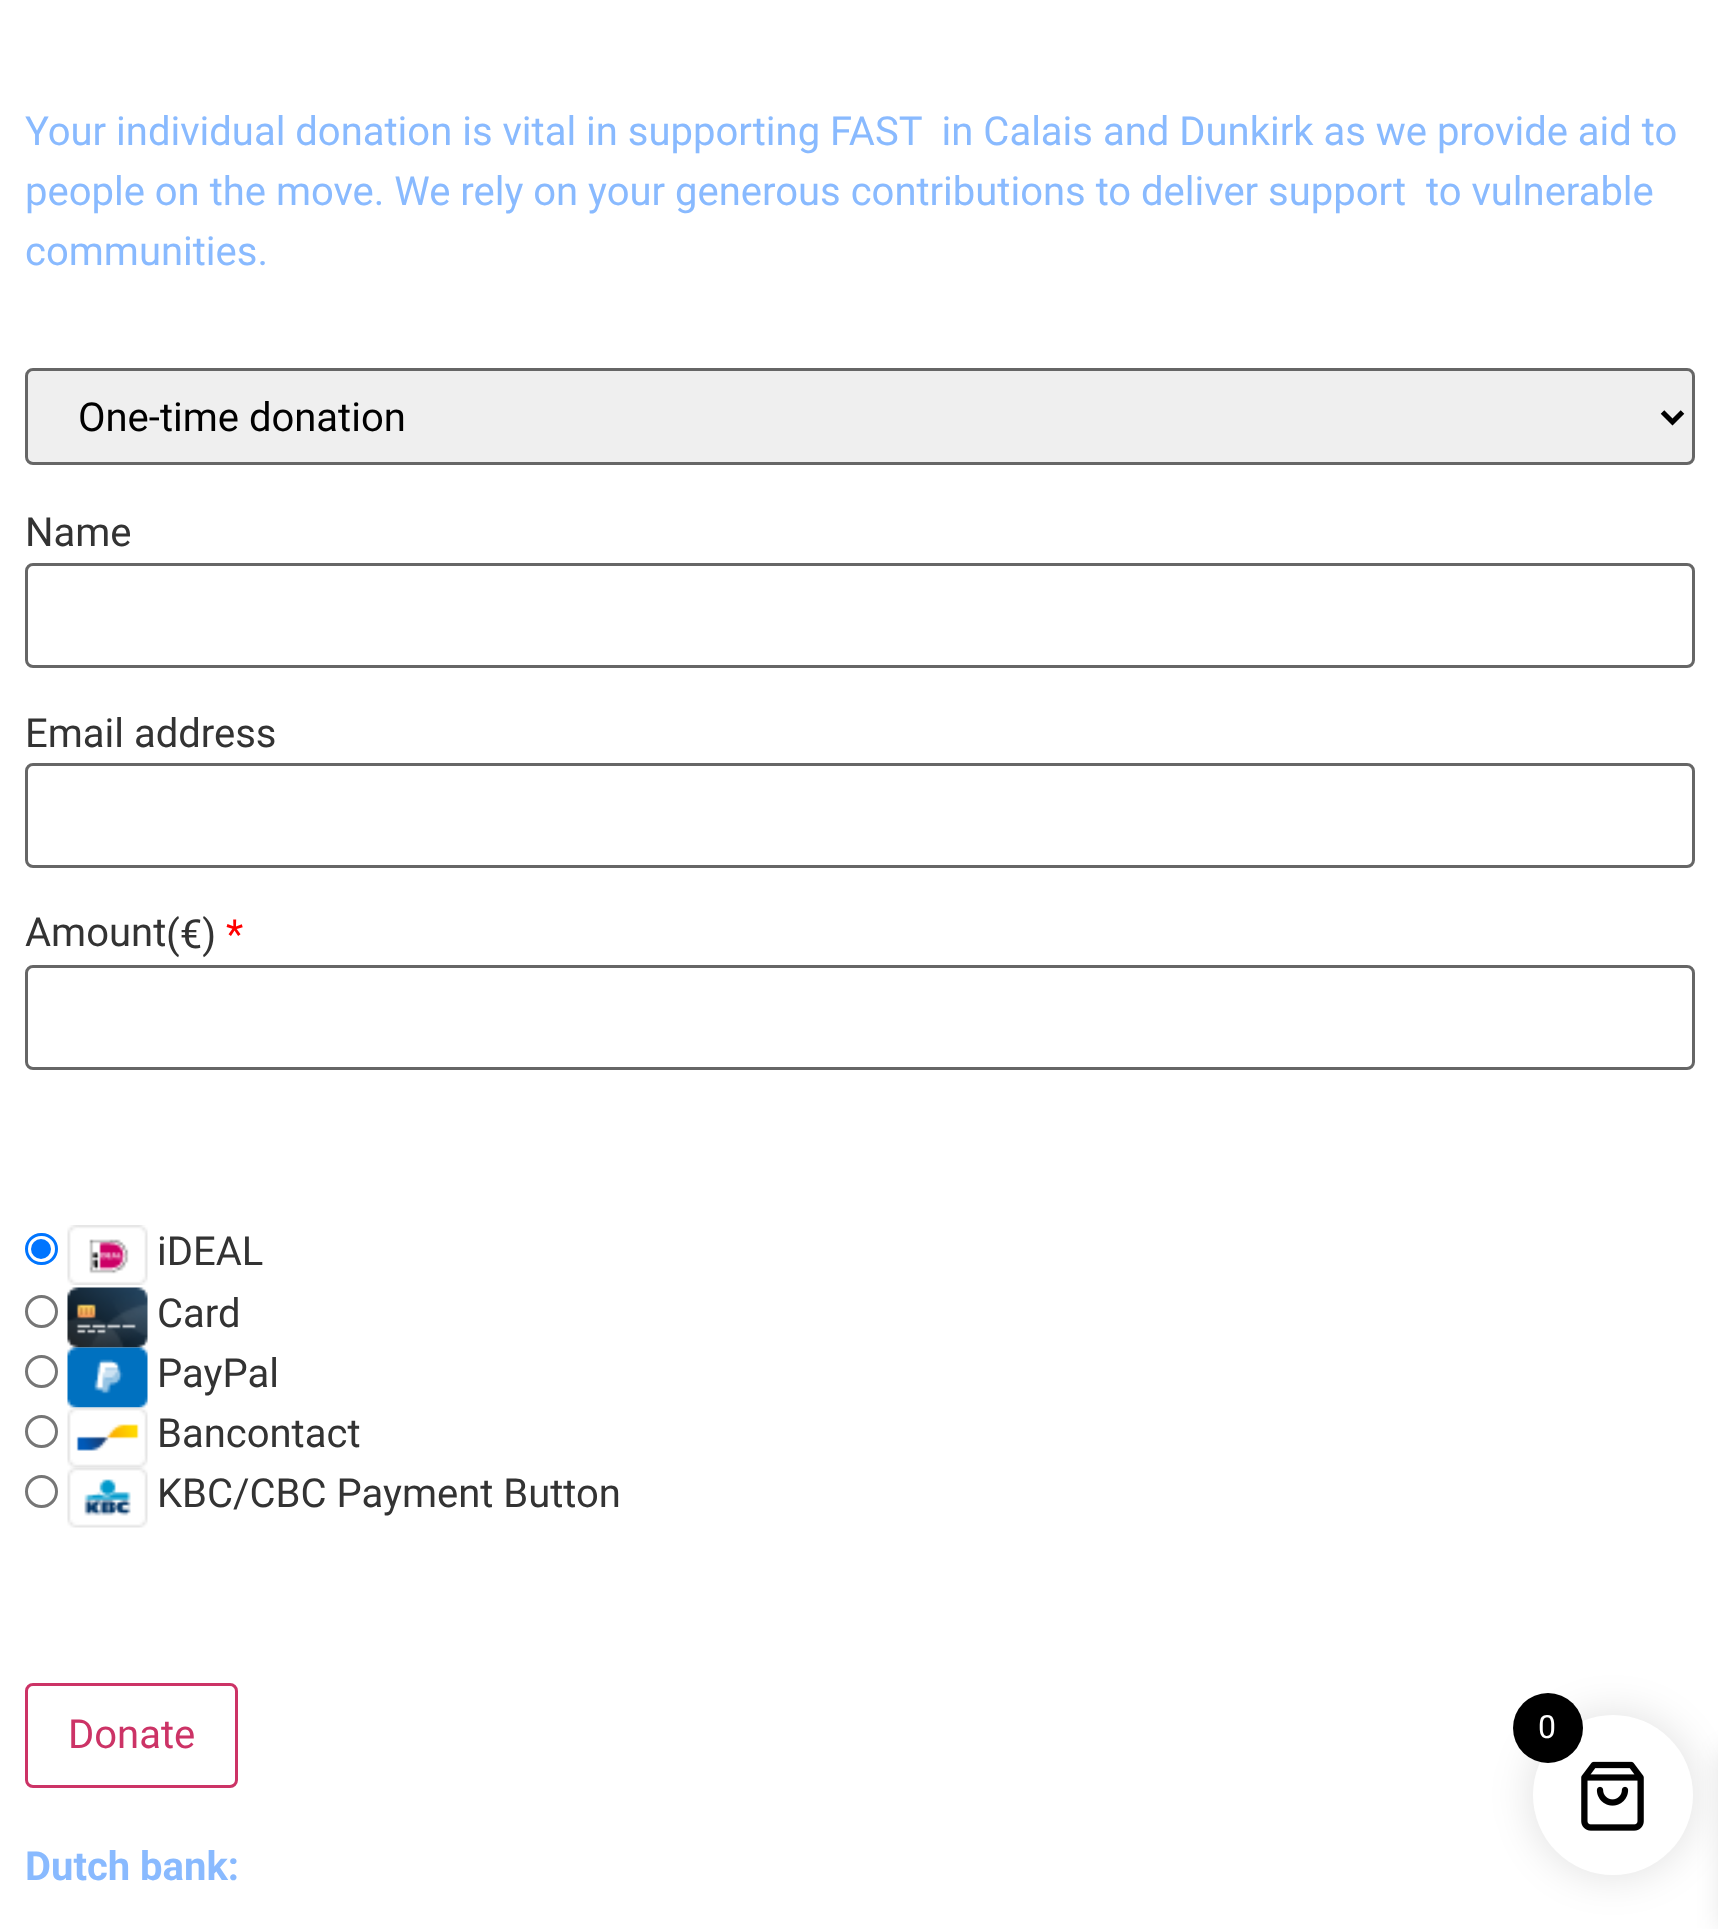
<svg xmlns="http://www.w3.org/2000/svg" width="1718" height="1929">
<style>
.a{font:40px Roboto;fill:#89baff}
.b{font:40px Roboto;fill:#000}
.c{font:40px Roboto;fill:#333}
.d{font:40px Roboto;fill:#f00}
.e{font:40px Roboto;fill:#c36}
.f{font:bold 40px Roboto;fill:#89baff}
.g{font:32px Roboto;fill:#fff}
</style>
<rect width="100%" height="100%" fill="#fff"/>
<rect fill="#efefef" stroke="#666" stroke-width="3" x="26.5" y="369.5" width="1667" height="94" rx="6.5"/>
<path fill="none" stroke="#000" stroke-width="5" d="M1662.5 412l10 10l10-10"/>
<rect fill="none" stroke="#666" stroke-width="3" x="26.5" y="564.5" width="1667" height="102" rx="6.5"/>
<rect fill="none" stroke="#666" stroke-width="3" x="26.5" y="764.5" width="1667" height="102" rx="6.5"/>
<rect fill="none" stroke="#666" stroke-width="3" x="26.5" y="966.5" width="1667" height="102" rx="6.5"/>
<rect fill="none" stroke="#0075ff" stroke-width="3" x="26.5" y="1234.5" width="30" height="29" rx="14.5"/>
<circle fill="#0075ff" cx="41" cy="1249" r="10"/>
<image href="1.png" x="67" y="1225" width="81" height="60"/>
<circle fill="none" stroke="#767676" stroke-width="3" cx="41.5" cy="1311.5" r="15"/>
<image href="2.png" x="67" y="1287" width="81" height="61"/>
<circle fill="none" stroke="#767676" stroke-width="3" cx="41.5" cy="1371.5" r="15"/>
<image href="3.png" x="67" y="1347" width="81" height="61"/>
<circle fill="none" stroke="#767676" stroke-width="3" cx="41.5" cy="1431.5" r="15"/>
<image href="4.png" x="67" y="1407" width="81" height="61"/>
<circle fill="none" stroke="#767676" stroke-width="3" cx="41.5" cy="1491.5" r="15"/>
<image href="5.png" x="67" y="1467" width="81" height="61"/>
<rect fill="none" stroke="#c36" stroke-width="3" x="26.5" y="1684.5" width="210" height="102" rx="6.5"/>
<rect fill="#0000001a" filter="blur(19px)" x="1528" y="1710" width="170" height="170" rx="85"/>
<path fill="#0000001a" filter="blur(12.5px)" d="M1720 1750h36v178H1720z"/>
<circle fill="#fff" cx="1613" cy="1795" r="80"/>
<image href="6.png" x="1581" y="1761" width="63" height="70"/>
<circle fill="#000" cx="1548" cy="1728" r="35"/>
<text class="a" xml:space="preserve" x="25" y="145">Your individual donation is vital in supporting FAST  in Calais and Dunkirk as we provide aid to</text>
<text class="a" xml:space="preserve" x="25" y="205">people on the move. We rely on your generous contributions to deliver support  to vulnerable</text>
<text class="a" x="25" y="265">communities.</text>
<text class="b" x="78" y="431">One-time donation</text>
<text class="c" x="25" y="546">Name</text>
<text class="c" x="25" y="747">Email address</text>
<text class="c" x="25" y="946">Amount</text>
<text class="c" x="166" y="948">(€)</text>
<text class="d" x="226" y="948">*</text>
<text class="c" x="157" y="1265">iDEAL</text>
<text class="c" x="157" y="1327">Card</text>
<text class="c" x="157" y="1387">PayPal</text>
<text class="c" x="157" y="1447">Bancontact</text>
<text class="c" x="157" y="1507">KBC/CBC Payment Button</text>
<text class="e" x="68" y="1748">Donate</text>
<text class="f" x="25" y="1880">Dutch bank:</text>
<text class="g" x="1538" y="1738">0</text>
</svg>
